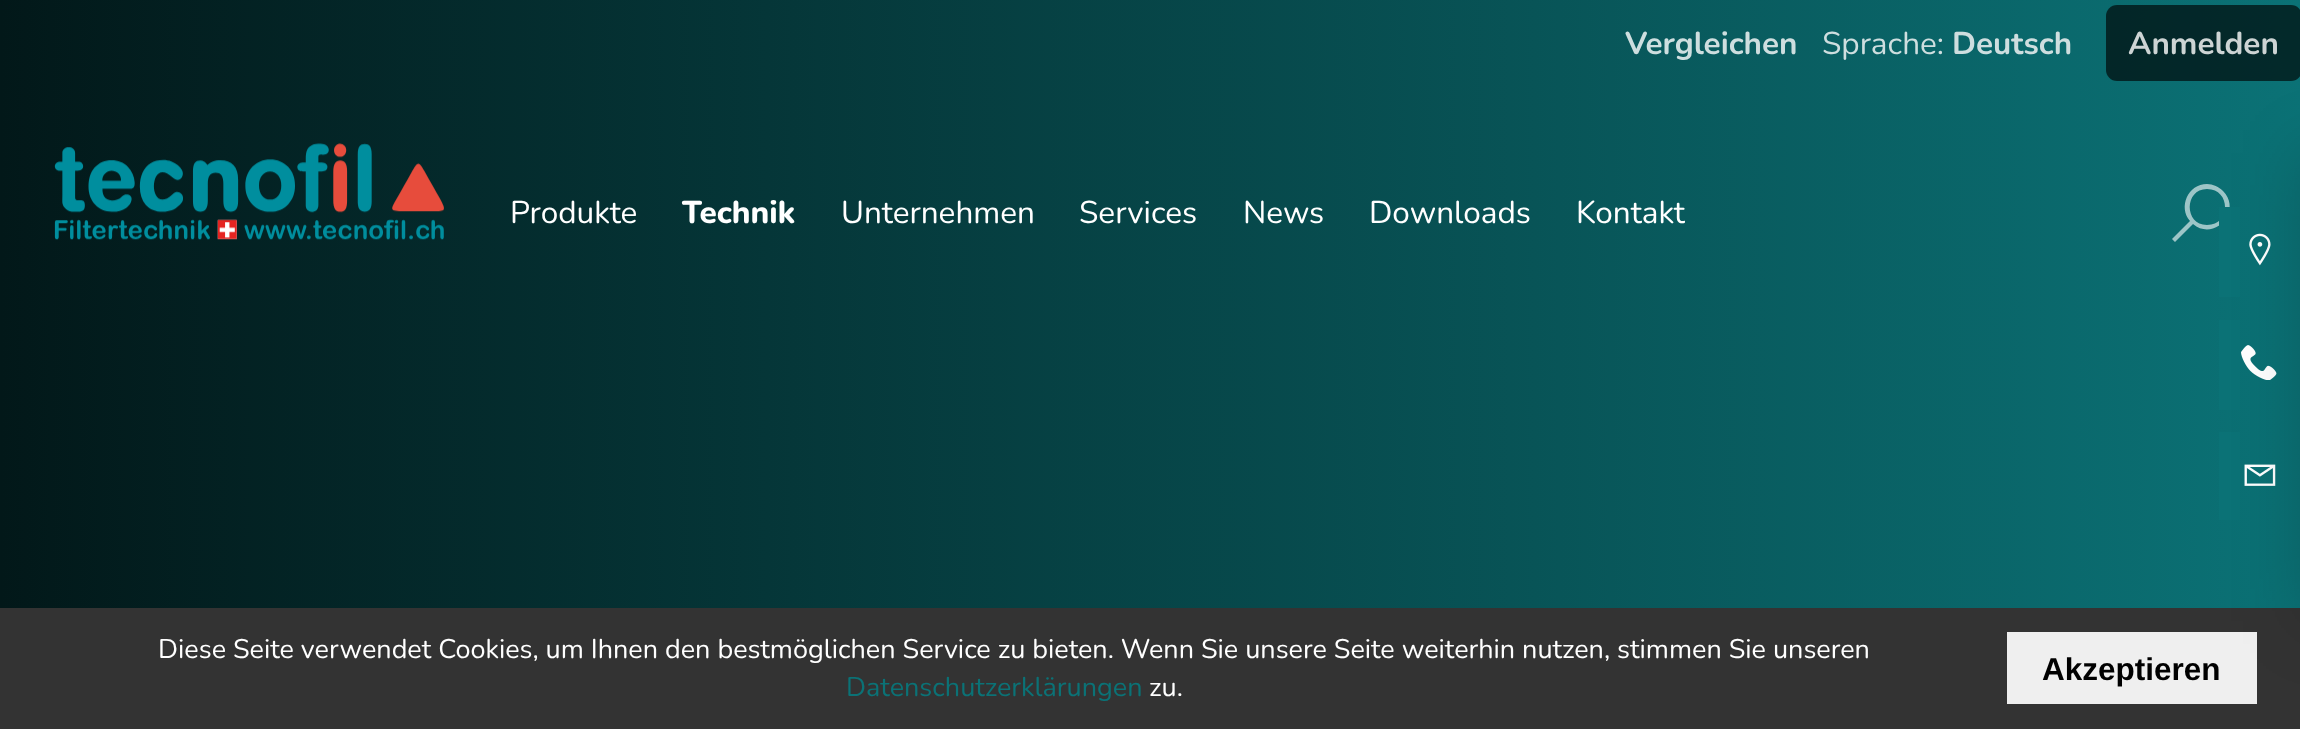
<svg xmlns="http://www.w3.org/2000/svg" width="2300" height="729">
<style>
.a{font:bold 31.5px Nunito;fill:#cededf}
.b{font:31.5px Nunito;fill:#cededf}
.c{font:bold 31.5px Nunito;fill:#cdd4d4}
.d{font:31.5px Nunito;fill:#fff}
.e{font:800 31.5px Nunito;fill:#fff}
.f{font:27px Nunito;fill:#fff}
.g{font:27px Nunito;fill:#0b7276}
.h{font:bold 31.5px Liberation Sans;fill:#000}
</style>
<defs>
<linearGradient id="g1" gradientUnits="userSpaceOnUse" x1="0" y1="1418" x2="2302" y2="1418"><stop offset="0" stop-color="#021819"/><stop offset="1" stop-color="#0b7276"/></linearGradient>
<linearGradient id="g2" gradientUnits="userSpaceOnUse" x1="0" y1="601" x2="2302" y2="601"><stop offset="0" stop-color="#021819"/><stop offset="1" stop-color="#0b7276"/></linearGradient>
</defs>
<rect width="100%" height="100%" fill="#fff"/>
<path fill="url(#g1)" d="M0 0h2300v338H0z"/>
<rect fill="#000000a3" x="2106" y="5" width="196" height="76" rx="11"/>
<image href="1.png" x="54" y="143" width="390" height="97"/>
<path fill="#9dc5c7" d="M2207 184c-19 0-29 23-17 37l-18 18l3 3l18-18c21 18 50-13 30-33c-4-4-10-7-16-7zm0 5c24 0 24 36 0 36c-23 0-23-36 0-36z"/>
<path fill="url(#g2)" d="M0 338h2300v270H0z"/>
<path fill="#333" d="M0 608h2300v121H0z"/>
<path fill="#efefef" d="M2007 632h250v72H2007z"/>
<path fill="#0b7276" d="M2219 207h21v90H2219z"/>
<image href="2.png" x="2249" y="233" width="22" height="33"/>
<path fill="#0b7276" d="M2219 320h21v90H2219z"/>
<image href="3.png" x="2241" y="345" width="36" height="35"/>
<path fill="#0b7276" d="M2219 432h21v88H2219z"/>
<image href="4.png" x="2244" y="464" width="32" height="22"/>
<path fill="#0000002e" filter="blur(34px)" d="M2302 153h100v468H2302z"/>
<text class="a" x="1625" y="54">Vergleichen</text>
<text class="b" x="1822" y="54">Sprache:</text>
<text class="a" x="1952" y="54">Deutsch</text>
<text class="c" x="2128" y="54">Anmelden</text>
<text class="d" x="510" y="223">Produkte</text>
<text class="e" x="682" y="223">Technik</text>
<text class="d" x="841" y="223">Unternehmen</text>
<text class="d" x="1079" y="223">Services</text>
<text class="d" x="1243" y="223">News</text>
<text class="d" x="1369" y="223">Downloads</text>
<text class="d" x="1576" y="223">Kontakt</text>
<text class="f" x="158" y="658">Diese Seite verwendet Cookies, um Ihnen den bestmöglichen Service zu bieten. Wenn Sie unsere Seite weiterhin nutzen, stimmen Sie unseren</text>
<text class="g" x="846" y="696">Datenschutzerklärungen</text>
<text class="f" x="1149" y="696">zu.</text>
<text class="h" x="2042" y="680">Akzeptieren</text>
</svg>
